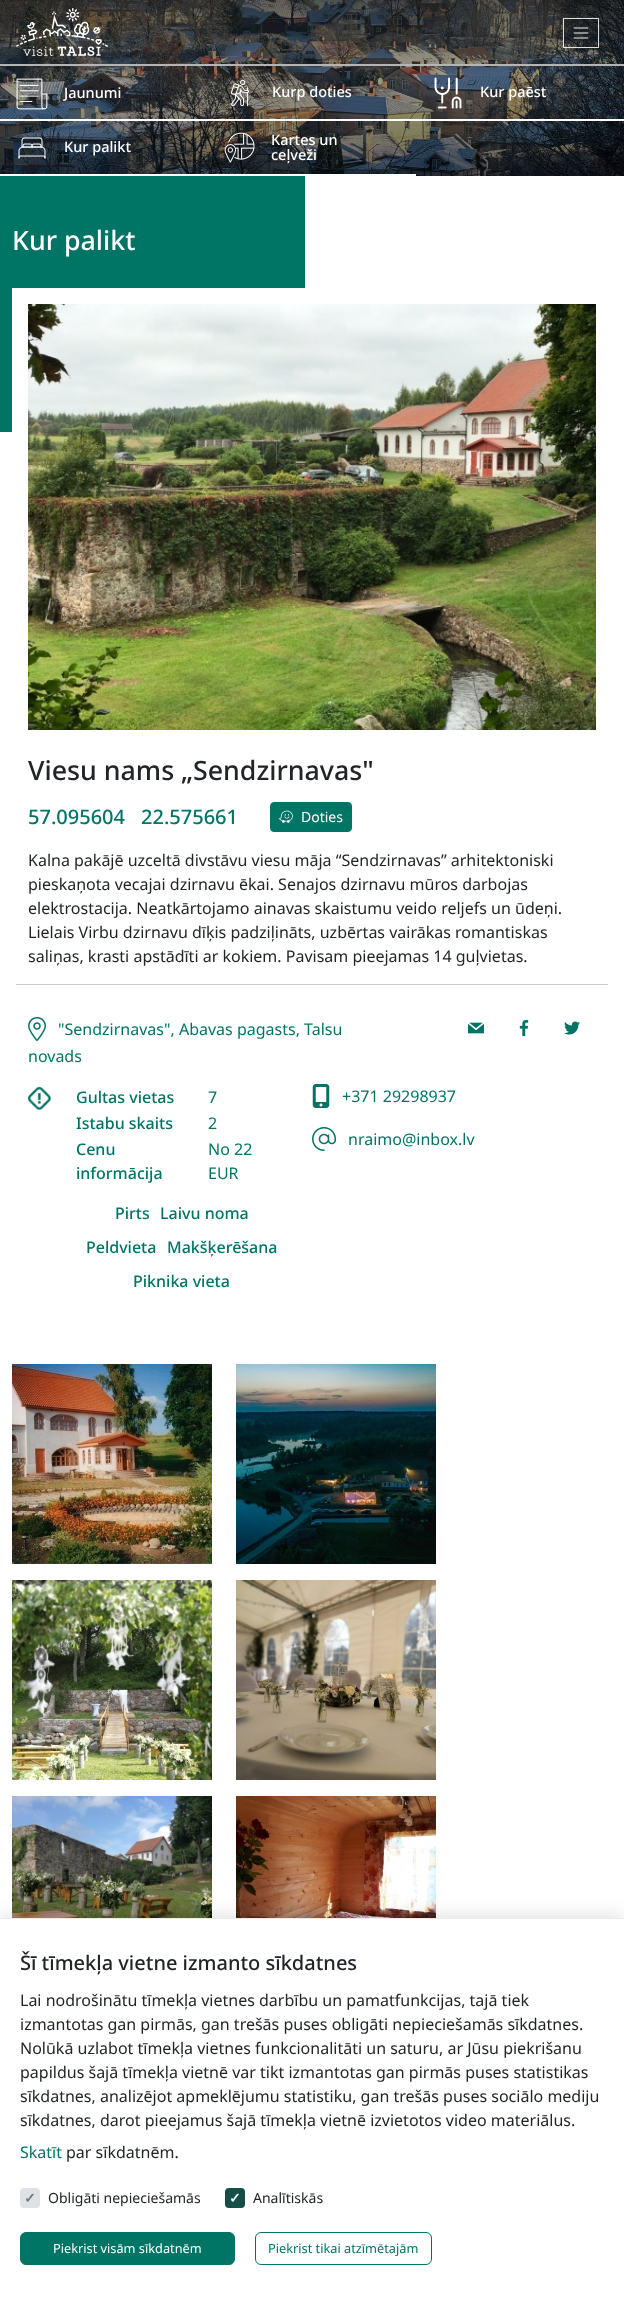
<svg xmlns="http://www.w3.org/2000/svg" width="624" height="2297">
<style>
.a{font:500 14.5px Noto Sans;fill:#fff}
.b{font:500 26.75px Noto Sans;fill:#fff}
.c{font:500 26.75px Noto Sans;fill:#212529}
.d{font:500 20px Noto Sans;fill:#007565}
.e{font:14px Noto Sans;fill:#fff}
.f{font:16px Noto Sans;fill:#212529}
.g{font:16px Noto Sans;fill:#007565}
.h{font:500 16px Noto Sans;fill:#007565}
.i{font:500 20px Noto Sans;fill:#212529}
.j{font:bold 14px DejaVu Sans;fill:#6c757d}
.k{font:14px Noto Sans;fill:#212529}
.l{font:bold 14px DejaVu Sans;fill:#fff}
.m{font:12.75px Noto Sans;fill:#fff}
.n{font:12.75px Noto Sans;fill:#007565}
</style>
<defs>
<linearGradient id="g1" gradientUnits="userSpaceOnUse" x1="312" y1="80" x2="312" y2="0"><stop offset="0" stop-color="#000" stop-opacity="0"/><stop offset="1" stop-color="#000" stop-opacity="0.5"/></linearGradient>
<linearGradient id="g2" gradientUnits="userSpaceOnUse" x1="312" y1="176" x2="312" y2="-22"><stop offset="0" stop-color="#000" stop-opacity="0.5"/><stop offset="1" stop-color="#000" stop-opacity="0"/></linearGradient>
</defs>
<rect width="100%" height="100%" fill="#fff"/>
<image href="1.png" x="0" y="0" width="624" height="176"/>
<path fill="#fff" d="M0 64h624v2H0z"/>
<path fill="url(#g1)" d="M0 0h624v77H0z"/>
<path fill="url(#g2)" d="M0 0h624v176H0z"/>
<image href="2.png" x="16" y="8" width="92" height="48"/>
<path fill="none" stroke="#fff" stroke-width="0.9" d="M563.45 18.45h35.1v29.1H563.45z"/>
<image href="3.png" x="573" y="27" width="16" height="12"/>
<path fill="#fff" d="M0 119h624v2H0z"/>
<image href="4.png" x="16" y="78" width="32" height="32"/>
<image href="5.png" x="230" y="79" width="20" height="28"/>
<image href="6.png" x="434" y="77" width="28" height="32"/>
<path fill="#fff" d="M0 174h416v2H0z"/>
<image href="7.png" x="18" y="137" width="28" height="22"/>
<image href="8.png" x="224" y="132" width="31" height="31"/>
<path fill="#007565" d="M0 176h305v256H0z"/>
<path fill="#fff" d="M12 288h293v144H12z"/>
<image href="9.png" x="28" y="304" width="568" height="426"/>
<rect fill="#007565" stroke="#007565" x="270.5" y="802.5" width="81" height="29" rx="3.5"/>
<image href="10.png" x="279" y="810" width="14" height="13"/>
<path fill="#c8c9ca" d="M16 984h592v1H16z"/>
<image href="11.png" x="28" y="1017" width="18" height="24"/>
<image href="12.png" x="468" y="1022" width="16" height="12"/>
<image href="13.png" x="519" y="1020" width="10" height="16"/>
<image href="14.png" x="564" y="1021" width="16" height="14"/>
<image href="15.png" x="28" y="1087" width="23" height="23"/>
<image href="16.png" x="312" y="1084" width="18" height="24"/>
<image href="17.png" x="312" y="1127" width="24" height="24"/>
<image href="18.png" x="12" y="1364" width="200" height="200"/>
<image href="19.png" x="236" y="1364" width="200" height="200"/>
<image href="20.png" x="12" y="1580" width="200" height="200"/>
<image href="21.png" x="236" y="1580" width="200" height="200"/>
<image href="22.png" x="12" y="1796" width="200" height="122"/>
<image href="23.png" x="236" y="1796" width="200" height="122"/>
<path fill="#0000001a" filter="blur(8px)" d="M0 1914h624v379H0z"/>
<path fill="#fff" d="M0 1919h624v378H0z"/>
<path fill="#e9ecef" d="M0 1918h624v1H0z"/>
<rect fill="#dee2e6" stroke="#dee2e6" stroke-width="2" x="21" y="2189" width="18" height="18" rx="3"/>
<rect fill="#144e46" stroke="#144e46" stroke-width="2" x="226" y="2189" width="18" height="18" rx="3"/>
<rect fill="#007565" stroke="#007565" x="20.5" y="2232.5" width="214" height="32" rx="5.5"/>
<rect fill="none" stroke="#007565" x="255.5" y="2232.5" width="176" height="32" rx="5.5"/>
<text class="a" x="64" y="98">Jaunumi</text>
<text class="a" x="272" y="97">Kurp doties</text>
<text class="a" x="480" y="97">Kur paēst</text>
<text class="a" x="64" y="152">Kur palikt</text>
<text class="a" x="271" y="145">Kartes un</text>
<text class="a" x="271" y="160">ceļveži</text>
<text class="b" x="12" y="250">Kur palikt</text>
<text class="c" x="28" y="780">Viesu nams „Sendzirnavas"</text>
<text class="d" x="28" y="824">57.095604</text>
<text class="d" x="141" y="824">22.575661</text>
<text class="e" x="301" y="822">Doties</text>
<text class="f" x="28" y="866">Kalna pakājē uzceltā divstāvu viesu māja “Sendzirnavas” arhitektoniski</text>
<text class="f" x="28" y="890">pieskaņota vecajai dzirnavu ēkai. Senajos dzirnavu mūros darbojas</text>
<text class="f" x="28" y="914">elektrostacija. Neatkārtojamo ainavas skaistumu veido reljefs un ūdeņi.</text>
<text class="f" x="28" y="938">Lielais Virbu dzirnavu dīķis padziļināts, uzbērtas vairākas romantiskas</text>
<text class="f" x="28" y="962">saliņas, krasti apstādīti ar kokiem. Pavisam pieejamas 14 guļvietas.</text>
<text class="g" x="58" y="1035">"Sendzirnavas", Abavas pagasts, Talsu</text>
<text class="g" x="28" y="1062">novads</text>
<text class="h" x="76" y="1103">Gultas vietas</text>
<text class="g" x="208" y="1103">7</text>
<text class="h" x="76" y="1129">Istabu skaits</text>
<text class="g" x="208" y="1129">2</text>
<text class="h" x="76" y="1155">Cenu</text>
<text class="h" x="76" y="1179">informācija</text>
<text class="g" x="208" y="1155">No 22</text>
<text class="g" x="208" y="1179">EUR</text>
<text class="h" x="115" y="1219">Pirts</text>
<text class="h" x="160" y="1219">Laivu noma</text>
<text class="h" x="86" y="1253">Peldvieta</text>
<text class="h" x="167" y="1253">Makšķerēšana</text>
<text class="h" x="133" y="1287">Piknika vieta</text>
<text class="g" x="342" y="1102">+371 29298937</text>
<text class="g" x="348" y="1145">nraimo@inbox.lv</text>
<text class="i" x="20" y="1970">Šī tīmekļa vietne izmanto sīkdatnes</text>
<text class="f" x="20" y="2006">Lai nodrošinātu tīmekļa vietnes darbību un pamatfunkcijas, tajā tiek</text>
<text class="f" x="20" y="2030">izmantotas gan pirmās, gan trešās puses obligāti nepieciešamās sīkdatnes.</text>
<text class="f" x="20" y="2054">Nolūkā uzlabot tīmekļa vietnes funkcionalitāti un saturu, ar Jūsu piekrišanu</text>
<text class="f" x="20" y="2078">papildus šajā tīmekļa vietnē var tikt izmantotas gan pirmās puses statistikas</text>
<text class="f" x="20" y="2102">sīkdatnes, analizējot apmeklējumu statistiku, gan trešās puses sociālo mediju</text>
<text class="f" x="20" y="2126">sīkdatnes, darot pieejamus šajā tīmekļa vietnē izvietotos video materiālus.</text>
<text class="g" x="20" y="2158">Skatīt</text>
<text class="f" x="66" y="2158">par sīkdatnēm.</text>
<text class="j" x="24" y="2203">✓</text>
<text class="k" x="48" y="2203">Obligāti nepieciešamās</text>
<text class="l" x="229" y="2203">✓</text>
<text class="k" x="253" y="2203">Analītiskās</text>
<text class="m" x="53" y="2253">Piekrist visām sīkdatnēm</text>
<text class="n" x="268" y="2253">Piekrist tikai atzīmētajām</text>
</svg>
